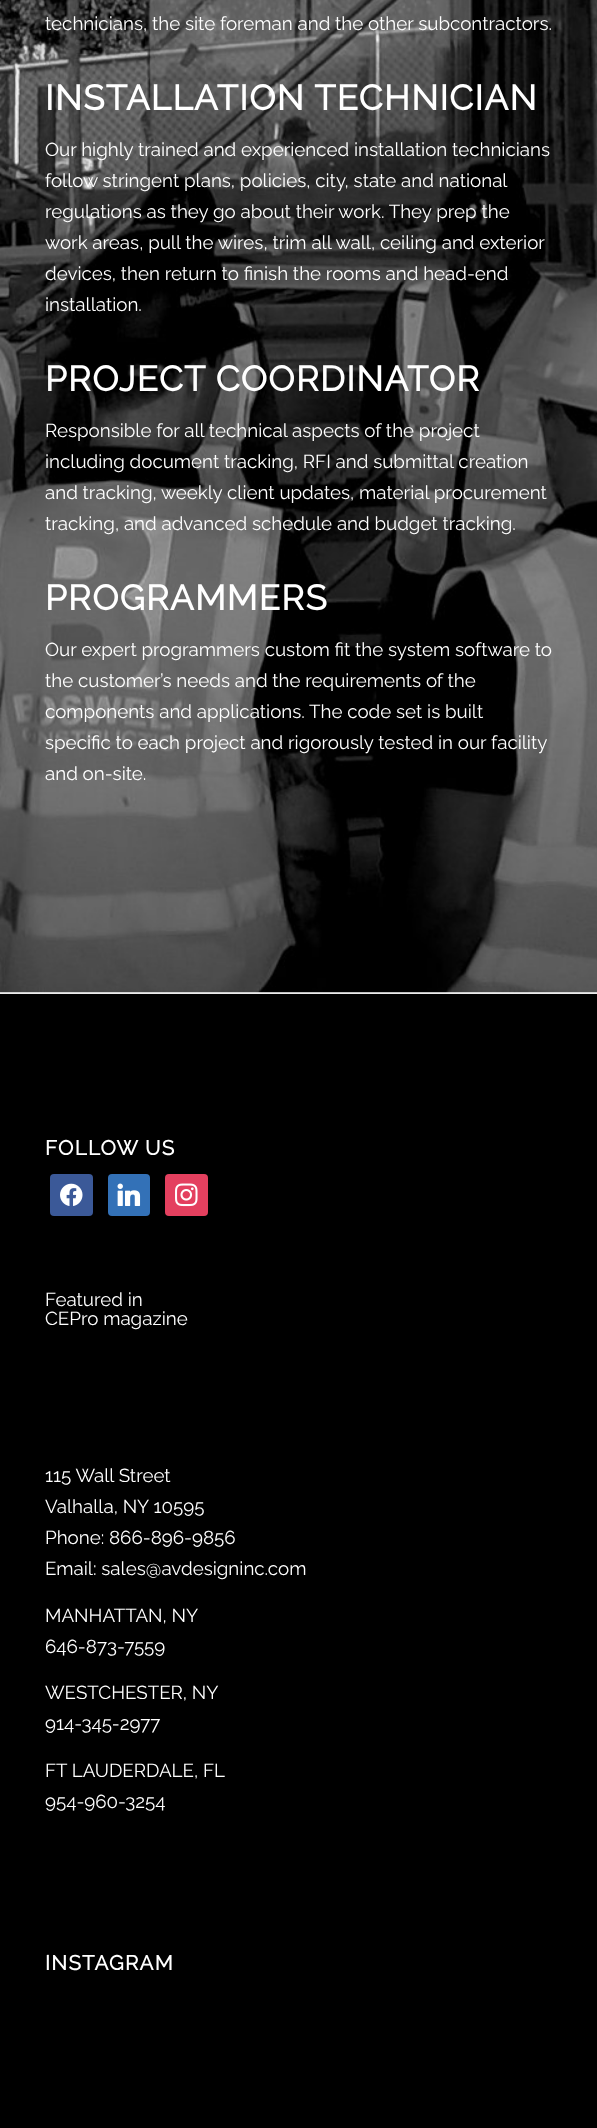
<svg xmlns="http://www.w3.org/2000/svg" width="597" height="2128">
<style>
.a{font:100 18.75px Raleway;fill:#fff}
.b{font:bold 35px Raleway;letter-spacing:1.25px;fill:#fff}
.c{font:bold 20.5px Raleway;letter-spacing:1.25px;fill:#fff}
</style>
<rect width="100%" height="100%" fill="#000"/>
<path fill="#fff" d="M0 992h597v1H0z"/>
<image href="1.png" x="0" y="0" width="597" height="993"/>
<path fill="#ebebeb" d="M0 993h597v1H0z"/>
<rect fill="#3b5998" x="50" y="1174" width="43" height="42" rx="4"/>
<image href="2.png" x="60" y="1183" width="23" height="23"/>
<rect fill="#3371b7" x="108" y="1174" width="42" height="42" rx="4"/>
<image href="3.png" x="117" y="1183" width="24" height="23"/>
<rect fill="#e4405f" x="165" y="1174" width="43" height="42" rx="4"/>
<image href="4.png" x="175" y="1183" width="23" height="24"/>
<text class="a" x="45" y="30">technicians, the site foreman and the other subcontractors.</text>
<text class="b" x="45" y="110">INSTALLATION TECHNICIAN</text>
<text class="a" x="45" y="156">Our highly trained and experienced installation technicians</text>
<text class="a" x="45" y="187">follow stringent plans, policies, city, state and national</text>
<text class="a" x="45" y="218">regulations as they go about their work. They prep the</text>
<text class="a" x="45" y="249">work areas, pull the wires, trim all wall, ceiling and exterior</text>
<text class="a" x="45" y="280">devices, then return to finish the rooms and head-end</text>
<text class="a" x="45" y="311">installation.</text>
<text class="b" x="45" y="391">PROJECT COORDINATOR</text>
<text class="a" x="45" y="437">Responsible for all technical aspects of the project</text>
<text class="a" x="45" y="468">including document tracking, RFI and submittal creation</text>
<text class="a" x="45" y="499">and tracking, weekly client updates, material procurement</text>
<text class="a" x="45" y="530">tracking, and advanced schedule and budget tracking.</text>
<text class="b" x="45" y="610">PROGRAMMERS</text>
<text class="a" x="45" y="656">Our expert programmers custom fit the system software to</text>
<text class="a" x="45" y="687">the customer’s needs and the requirements of the</text>
<text class="a" x="45" y="718">components and applications. The code set is built</text>
<text class="a" x="45" y="749">specific to each project and rigorously tested in our facility</text>
<text class="a" x="45" y="780">and on-site.</text>
<text class="c" x="45" y="1155">FOLLOW US</text>
<text class="a" x="45" y="1306">Featured in</text>
<text class="a" x="45" y="1325">CEPro magazine</text>
<text class="a" x="45" y="1482">115 Wall Street</text>
<text class="a" x="45" y="1513">Valhalla, NY 10595</text>
<text class="a" x="45" y="1544">Phone: 866-896-9856</text>
<text class="a" x="45" y="1575">Email: sales@avdesigninc.com</text>
<text class="a" x="45" y="1622">MANHATTAN, NY</text>
<text class="a" x="45" y="1653">646-873-7559</text>
<text class="a" x="45" y="1699">WESTCHESTER, NY</text>
<text class="a" x="45" y="1730">914-345-2977</text>
<text class="a" x="45" y="1777">FT LAUDERDALE, FL</text>
<text class="a" x="45" y="1808">954-960-3254</text>
<text class="c" x="45" y="1970">INSTAGRAM</text>
</svg>
